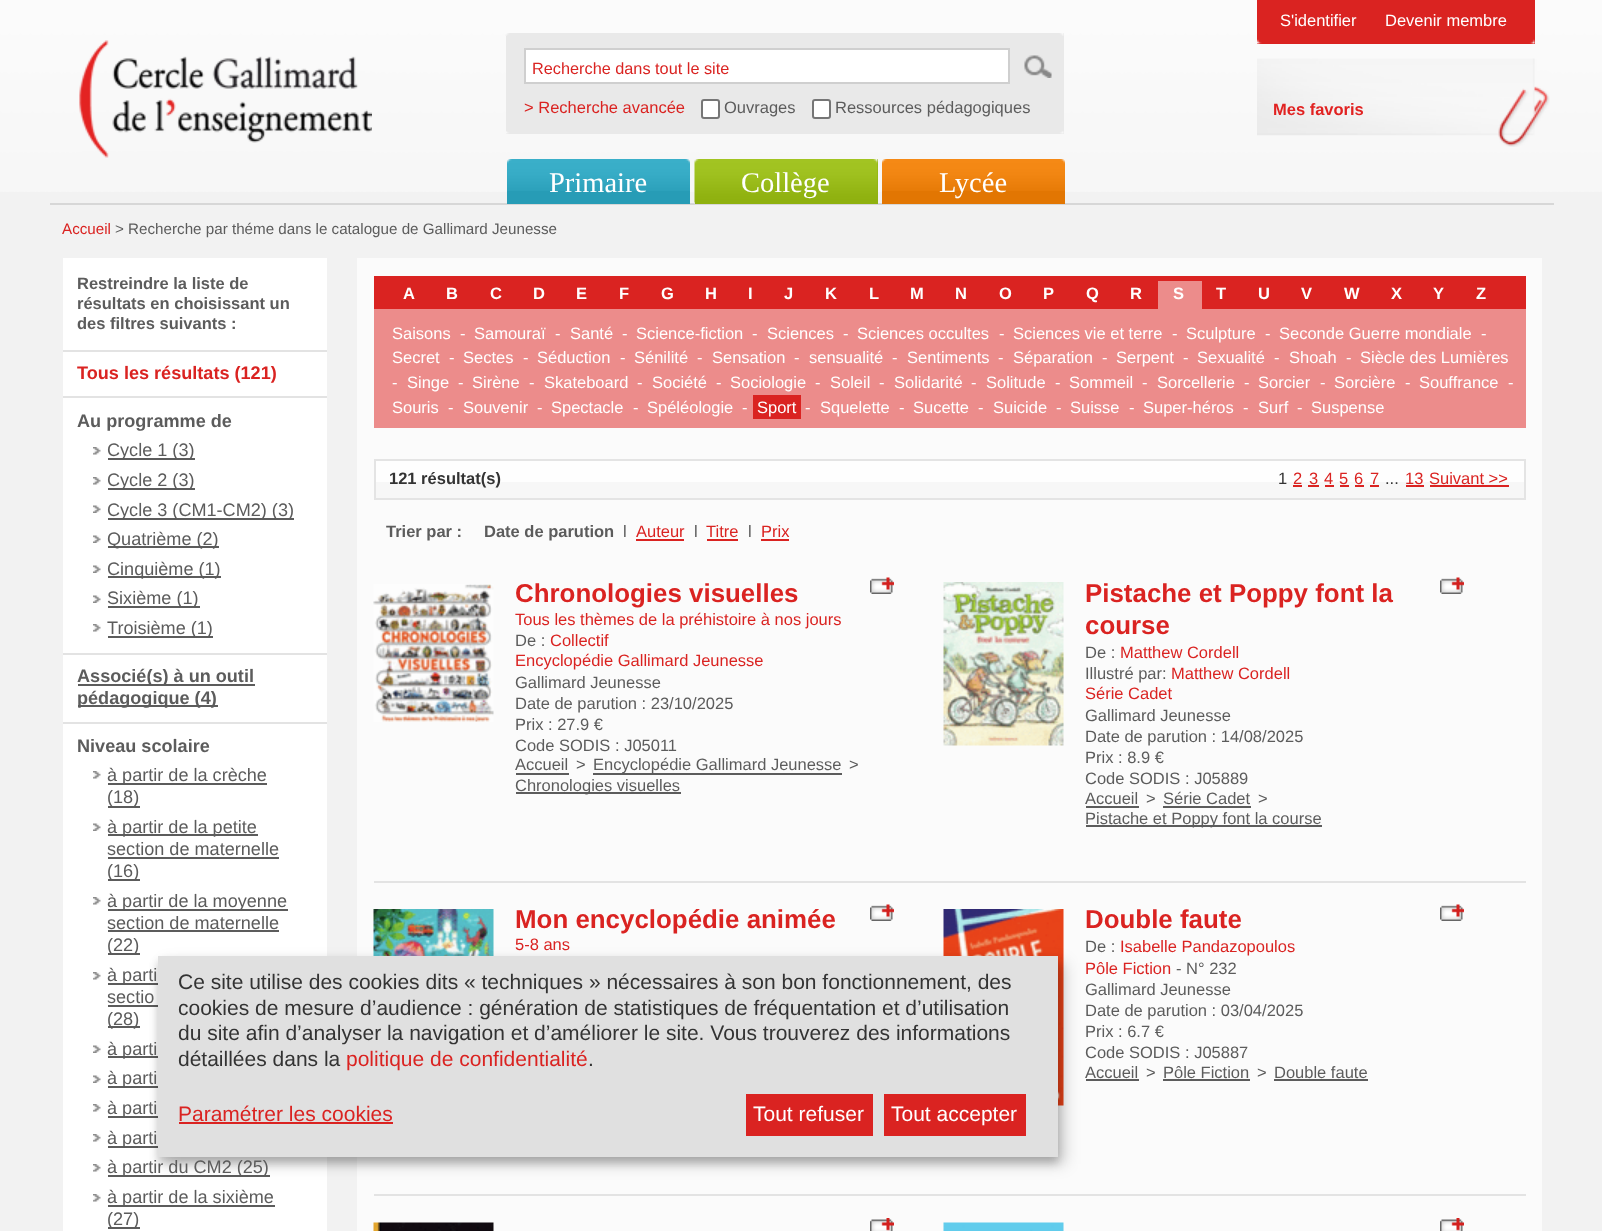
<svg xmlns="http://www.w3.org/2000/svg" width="1602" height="1231">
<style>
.a{font:16.3px Liberation Sans;fill:#da2321}
.b{font:16.5px Liberation Sans;fill:#da2321}
.c{font:16.5px Liberation Sans;fill:#5c5c5c}
.d{font:16.5px Liberation Sans;fill:#fff}
.e{font:bold 16.5px Liberation Sans;fill:#e12221}
.f{font:28.5px Liberation Serif;fill:#fff}
.g{font:15.2px Liberation Sans;fill:#da2321}
.h{font:15.2px Liberation Sans;fill:#5c5c5c}
.i{font:bold 16.5px Liberation Sans;fill:#5c5c5c}
.j{font:bold 18.1px Liberation Sans;fill:#da2321}
.k{font:bold 18.1px Liberation Sans;fill:#5c5c5c}
.l{font:18.1px Liberation Sans;fill:#5c5c5c}
.m{font:bold 16.5px Liberation Sans;fill:#fff}
.n{font:bold 16.5px Liberation Sans;fill:#333}
.o{font:16.5px Liberation Sans;fill:#333}
.p{font:bold 25.9px Liberation Sans;fill:#da2321}
.q{font:21px Liberation Sans;fill:#333}
.r{font:21px Liberation Sans;fill:#da2321}
.s{font:21px Liberation Sans;fill:#fff}
</style>
<rect width="100%" height="100%" fill="#f2f2f2"/>
<image href="1.png" x="0" y="0" width="1602" height="192"/>
<image href="2.png" x="79" y="40" width="293" height="118"/>
<path fill="#e9e9e9" d="M506 33h558v101H506z"/>
<image href="3.png" x="505" y="33" width="559" height="3"/>
<image href="4.png" x="506" y="131" width="558" height="3"/>
<path fill="#fff" stroke="#cfcfcf" stroke-width="2" d="M525 49h484v34H525z"/>
<image href="5.png" x="1024" y="55" width="28" height="23"/>
<rect fill="#fff" stroke="#767676" stroke-width="2" x="702" y="100" width="17" height="18" rx="2"/>
<rect fill="#fff" stroke="#767676" stroke-width="2" x="813" y="100" width="17" height="18" rx="2"/>
<path fill="#da2321" d="M1257 0h278v44H1257z"/>
<image href="6.png" x="1257" y="39" width="278" height="5"/>
<image href="7.png" x="1257" y="58" width="293" height="89"/>
<path fill="#d7d7d7" d="M50 203h1504v2H50z"/>
<path fill="#279cb6" d="M507 191h183v13H507z"/>
<image href="8.png" x="507" y="159" width="183" height="32"/>
<path fill="#8fb10f" d="M695 159h183v45H695z"/>
<image href="9.png" x="694" y="159" width="184" height="44"/>
<path fill="#e27602" d="M882 191h183v13H882z"/>
<image href="10.png" x="882" y="159" width="183" height="32"/>
<path fill="#fff" d="M63 258h264v973H63z"/>
<path fill="#e3e3e3" d="M63 350h264v2H63z"/>
<path fill="#e3e3e3" d="M63 396h264v2H63z"/>
<image href="11.png" x="93" y="447" width="8" height="8"/>
<path fill="#5c5c5c" d="M108 458h87v2H108z"/>
<image href="11.png" x="93" y="477" width="8" height="8"/>
<path fill="#5c5c5c" d="M108 488h87v2H108z"/>
<image href="12.png" x="93" y="505" width="8" height="8"/>
<path fill="#5c5c5c" d="M108 518h186v2H108z"/>
<image href="12.png" x="93" y="535" width="8" height="8"/>
<path fill="#5c5c5c" d="M108 546h111v2H108z"/>
<image href="12.png" x="93" y="565" width="8" height="8"/>
<path fill="#5c5c5c" d="M108 576h113v2H108z"/>
<image href="12.png" x="93" y="595" width="8" height="8"/>
<path fill="#5c5c5c" d="M108 606h92v2H108z"/>
<image href="11.png" x="93" y="624" width="8" height="8"/>
<path fill="#5c5c5c" d="M108 636h105v2H108z"/>
<path fill="#e3e3e3" d="M63 653h264v2H63z"/>
<path fill="#5c5c5c" d="M78 684h177v2H78z"/>
<path fill="#5c5c5c" d="M78 705h140v2H78z"/>
<path fill="#e3e3e3" d="M63 722h264v2H63z"/>
<image href="11.png" x="93" y="771" width="8" height="8"/>
<path fill="#5c5c5c" d="M108 783h159v2H108z"/>
<path fill="#5c5c5c" d="M108 806h32v2H108z"/>
<image href="12.png" x="93" y="823" width="8" height="8"/>
<path fill="#5c5c5c" d="M108 834h150v2H108z"/>
<path fill="#5c5c5c" d="M108 857h171v2H108z"/>
<path fill="#5c5c5c" d="M108 879h32v2H108z"/>
<image href="11.png" x="93" y="897" width="8" height="8"/>
<path fill="#5c5c5c" d="M108 909h180v2H108z"/>
<path fill="#5c5c5c" d="M108 930h171v2H108z"/>
<path fill="#5c5c5c" d="M108 953h32v2H108z"/>
<image href="11.png" x="93" y="972" width="8" height="8"/>
<path fill="#5c5c5c" d="M108 983h50v2H108z"/>
<path fill="#5c5c5c" d="M108 1005h50v2H108z"/>
<path fill="#5c5c5c" d="M108 1026h32v2H108z"/>
<image href="12.png" x="93" y="1045" width="8" height="8"/>
<path fill="#5c5c5c" d="M108 1056h50v2H108z"/>
<image href="12.png" x="93" y="1075" width="8" height="8"/>
<path fill="#5c5c5c" d="M108 1086h50v2H108z"/>
<image href="11.png" x="93" y="1104" width="8" height="8"/>
<path fill="#5c5c5c" d="M108 1116h50v2H108z"/>
<image href="11.png" x="93" y="1134" width="8" height="8"/>
<path fill="#5c5c5c" d="M108 1146h50v2H108z"/>
<image href="11.png" x="93" y="1164" width="8" height="8"/>
<path fill="#5c5c5c" d="M108 1175h162v2H108z"/>
<image href="11.png" x="93" y="1194" width="8" height="8"/>
<path fill="#5c5c5c" d="M108 1205h167v2H108z"/>
<path fill="#5c5c5c" d="M108 1227h32v2H108z"/>
<path fill="#fbfbfb" d="M357 258h1185v973H357z"/>
<path fill="#da2321" d="M374 276h1152v33H374z"/>
<path fill="#ec8c8b" d="M1158 281h44v28H1158z"/>
<path fill="#ec8c8b" d="M374 309h1152v119H374z"/>
<path fill="#da2321" d="M753 395h48v24H753z"/>
<path fill="#fefefe" d="M376 461h1148v21H376z"/>
<path fill="#f7f7f7" d="M376 482h1148v16H376z"/>
<path fill="none" stroke="#e4e4e4" stroke-width="2" d="M375 460h1150v39H375z"/>
<path fill="#da2321" d="M1293 485h9v2H1293z"/>
<path fill="#da2321" d="M1308 485h11v2H1308z"/>
<path fill="#da2321" d="M1325 485h9v2H1325z"/>
<path fill="#da2321" d="M1340 485h9v2H1340z"/>
<path fill="#da2321" d="M1355 485h9v2H1355z"/>
<path fill="#da2321" d="M1370 485h9v2H1370z"/>
<path fill="#da2321" d="M1406 485h18v2H1406z"/>
<path fill="#da2321" d="M1430 485h79v2H1430z"/>
<path fill="#da2321" d="M636 539h48v2H636z"/>
<path fill="#da2321" d="M707 539h31v2H707z"/>
<path fill="#da2321" d="M761 539h28v2H761z"/>
<image href="13.png" x="373" y="584" width="121" height="138"/>
<image href="14.png" x="870" y="577" width="24" height="17"/>
<path fill="#5c5c5c" d="M516 773h53v2H516z"/>
<path fill="#5c5c5c" d="M593 773h249v2H593z"/>
<path fill="#5c5c5c" d="M516 792h165v2H516z"/>
<image href="15.png" x="943" y="582" width="121" height="164"/>
<image href="14.png" x="1440" y="577" width="24" height="17"/>
<path fill="#5c5c5c" d="M1086 806h53v2H1086z"/>
<path fill="#5c5c5c" d="M1163 806h88v2H1163z"/>
<path fill="#5c5c5c" d="M1086 825h236v2H1086z"/>
<path fill="#e3e3e3" d="M374 881h1152v2H374z"/>
<image href="16.png" x="373" y="909" width="121" height="47"/>
<image href="14.png" x="870" y="904" width="24" height="17"/>
<image href="17.png" x="943" y="909" width="121" height="197"/>
<image href="14.png" x="1440" y="904" width="24" height="17"/>
<path fill="#5c5c5c" d="M1086 1079h53v2H1086z"/>
<path fill="#5c5c5c" d="M1163 1079h87v2H1163z"/>
<path fill="#5c5c5c" d="M1274 1079h94v2H1274z"/>
<path fill="#e3e3e3" d="M374 1194h1152v2H374z"/>
<image href="18.png" x="373" y="1222" width="121" height="9"/>
<image href="19.png" x="870" y="1218" width="24" height="13"/>
<image href="20.png" x="943" y="1222" width="121" height="9"/>
<image href="19.png" x="1440" y="1218" width="24" height="13"/>
<path fill="#00000030" filter="blur(7.5px)" d="M165 963h900v201H165z"/>
<path fill="#00000033" filter="blur(4.5px)" d="M158 962h900v201H158z"/>
<path fill="#e0e0e0" d="M158 956h900v201H158z"/>
<path fill="#da2321" d="M179 1122h214v2H179z"/>
<path fill="#da2321" d="M746 1094h127v42H746z"/>
<path fill="#da2321" d="M884 1094h142v42H884z"/>
<text class="a" x="532" y="74">Recherche dans tout le site</text>
<text class="b" x="524" y="113">&gt; Recherche avancée</text>
<text class="c" x="724" y="113">Ouvrages</text>
<text class="c" x="835" y="113">Ressources pédagogiques</text>
<text class="d" x="1280" y="26">S'identifier</text>
<text class="d" x="1385" y="26">Devenir membre</text>
<text class="e" x="1273" y="115">Mes favoris</text>
<text class="f" x="549" y="192">Primaire</text>
<text class="f" x="741" y="192">Collège</text>
<text class="f" x="939" y="192">Lycée</text>
<text class="g" x="62" y="234">Accueil</text>
<text class="h" x="115" y="234">&gt; Recherche par théme dans le catalogue de Gallimard Jeunesse</text>
<text class="i" x="77" y="289">Restreindre la liste de</text>
<text class="i" x="77" y="309">résultats en choisissant un</text>
<text class="i" x="77" y="329">des filtres suivants :</text>
<text class="j" x="77" y="379">Tous les résultats (121)</text>
<text class="k" x="77" y="427">Au programme de</text>
<text class="l" x="107" y="456">Cycle 1 (3)</text>
<text class="l" x="107" y="486">Cycle 2 (3)</text>
<text class="l" x="107" y="516">Cycle 3 (CM1-CM2) (3)</text>
<text class="l" x="107" y="545">Quatrième (2)</text>
<text class="l" x="107" y="575">Cinquième (1)</text>
<text class="l" x="107" y="604">Sixième (1)</text>
<text class="l" x="107" y="634">Troisième (1)</text>
<text class="k" x="77" y="682">Associé(s) à un outil</text>
<text class="k" x="77" y="704">pédagogique (4)</text>
<text class="k" x="77" y="752">Niveau scolaire</text>
<text class="l" x="107" y="781">à partir de la crèche</text>
<text class="l" x="107" y="803">(18)</text>
<text class="l" x="107" y="833">à partir de la petite</text>
<text class="l" x="107" y="855">section de maternelle</text>
<text class="l" x="107" y="877">(16)</text>
<text class="l" x="107" y="907">à partir de la moyenne</text>
<text class="l" x="107" y="929">section de maternelle</text>
<text class="l" x="107" y="951">(22)</text>
<text class="l" x="107" y="981">à parti</text>
<text class="l" x="107" y="1003">sectio</text>
<text class="l" x="107" y="1025">(28)</text>
<text class="l" x="107" y="1055">à parti</text>
<text class="l" x="107" y="1084">à parti</text>
<text class="l" x="107" y="1114">à parti</text>
<text class="l" x="107" y="1144">à parti</text>
<text class="l" x="107" y="1173">à partir du CM2 (25)</text>
<text class="l" x="107" y="1203">à partir de la sixième</text>
<text class="l" x="107" y="1225">(27)</text>
<text class="m" x="403" y="299">A</text>
<text class="m" x="446" y="299">B</text>
<text class="m" x="490" y="299">C</text>
<text class="m" x="533" y="299">D</text>
<text class="m" x="576" y="299">E</text>
<text class="m" x="619" y="299">F</text>
<text class="m" x="661" y="299">G</text>
<text class="m" x="705" y="299">H</text>
<text class="m" x="748" y="299">I</text>
<text class="m" x="784" y="299">J</text>
<text class="m" x="825" y="299">K</text>
<text class="m" x="869" y="299">L</text>
<text class="m" x="910" y="299">M</text>
<text class="m" x="955" y="299">N</text>
<text class="m" x="999" y="299">O</text>
<text class="m" x="1043" y="299">P</text>
<text class="m" x="1086" y="299">Q</text>
<text class="m" x="1130" y="299">R</text>
<text class="m" x="1173" y="299">S</text>
<text class="m" x="1216" y="299">T</text>
<text class="m" x="1258" y="299">U</text>
<text class="m" x="1301" y="299">V</text>
<text class="m" x="1344" y="299">W</text>
<text class="m" x="1391" y="299">X</text>
<text class="m" x="1433" y="299">Y</text>
<text class="m" x="1476" y="299">Z</text>
<text class="d" x="392" y="339">Saisons</text>
<text class="d" x="460" y="339">-</text>
<text class="d" x="474" y="339">Samouraï</text>
<text class="d" x="555" y="339">-</text>
<text class="d" x="570" y="339">Santé</text>
<text class="d" x="622" y="339">-</text>
<text class="d" x="636" y="339">Science-fiction</text>
<text class="d" x="752" y="339">-</text>
<text class="d" x="767" y="339">Sciences</text>
<text class="d" x="843" y="339">-</text>
<text class="d" x="857" y="339">Sciences occultes</text>
<text class="d" x="999" y="339">-</text>
<text class="d" x="1013" y="339">Sciences vie et terre</text>
<text class="d" x="1172" y="339">-</text>
<text class="d" x="1186" y="339">Sculpture</text>
<text class="d" x="1265" y="339">-</text>
<text class="d" x="1279" y="339">Seconde Guerre mondiale</text>
<text class="d" x="1481" y="339">-</text>
<text class="d" x="392" y="363">Secret</text>
<text class="d" x="449" y="363">-</text>
<text class="d" x="463" y="363">Sectes</text>
<text class="d" x="523" y="363">-</text>
<text class="d" x="537" y="363">Séduction</text>
<text class="d" x="620" y="363">-</text>
<text class="d" x="634" y="363">Sénilité</text>
<text class="d" x="697" y="363">-</text>
<text class="d" x="712" y="363">Sensation</text>
<text class="d" x="794" y="363">-</text>
<text class="d" x="809" y="363">sensualité</text>
<text class="d" x="892" y="363">-</text>
<text class="d" x="907" y="363">Sentiments</text>
<text class="d" x="998" y="363">-</text>
<text class="d" x="1013" y="363">Séparation</text>
<text class="d" x="1102" y="363">-</text>
<text class="d" x="1116" y="363">Serpent</text>
<text class="d" x="1183" y="363">-</text>
<text class="d" x="1197" y="363">Sexualité</text>
<text class="d" x="1274" y="363">-</text>
<text class="d" x="1289" y="363">Shoah</text>
<text class="d" x="1346" y="363">-</text>
<text class="d" x="1360" y="363">Siècle des Lumières</text>
<text class="d" x="392" y="388">-</text>
<text class="d" x="407" y="388">Singe</text>
<text class="d" x="458" y="388">-</text>
<text class="d" x="472" y="388">Sirène</text>
<text class="d" x="529" y="388">-</text>
<text class="d" x="544" y="388">Skateboard</text>
<text class="d" x="637" y="388">-</text>
<text class="d" x="652" y="388">Société</text>
<text class="d" x="716" y="388">-</text>
<text class="d" x="730" y="388">Sociologie</text>
<text class="d" x="815" y="388">-</text>
<text class="d" x="830" y="388">Soleil</text>
<text class="d" x="879" y="388">-</text>
<text class="d" x="894" y="388">Solidarité</text>
<text class="d" x="971" y="388">-</text>
<text class="d" x="986" y="388">Solitude</text>
<text class="d" x="1055" y="388">-</text>
<text class="d" x="1069" y="388">Sommeil</text>
<text class="d" x="1142" y="388">-</text>
<text class="d" x="1157" y="388">Sorcellerie</text>
<text class="d" x="1244" y="388">-</text>
<text class="d" x="1258" y="388">Sorcier</text>
<text class="d" x="1320" y="388">-</text>
<text class="d" x="1334" y="388">Sorcière</text>
<text class="d" x="1405" y="388">-</text>
<text class="d" x="1419" y="388">Souffrance</text>
<text class="d" x="1508" y="388">-</text>
<text class="d" x="392" y="413">Souris</text>
<text class="d" x="448" y="413">-</text>
<text class="d" x="463" y="413">Souvenir</text>
<text class="d" x="537" y="413">-</text>
<text class="d" x="551" y="413">Spectacle</text>
<text class="d" x="633" y="413">-</text>
<text class="d" x="647" y="413">Spéléologie</text>
<text class="d" x="742" y="413">-</text>
<text class="d" x="757" y="413">Sport</text>
<text class="d" x="805" y="413">-</text>
<text class="d" x="820" y="413">Squelette</text>
<text class="d" x="899" y="413">-</text>
<text class="d" x="913" y="413">Sucette</text>
<text class="d" x="978" y="413">-</text>
<text class="d" x="993" y="413">Suicide</text>
<text class="d" x="1056" y="413">-</text>
<text class="d" x="1070" y="413">Suisse</text>
<text class="d" x="1129" y="413">-</text>
<text class="d" x="1143" y="413">Super-héros</text>
<text class="d" x="1243" y="413">-</text>
<text class="d" x="1258" y="413">Surf</text>
<text class="d" x="1297" y="413">-</text>
<text class="d" x="1311" y="413">Suspense</text>
<text class="n" x="389" y="484">121 résultat(s)</text>
<text class="o" x="1278" y="484">1</text>
<text class="b" x="1293" y="484">2</text>
<text class="b" x="1309" y="484">3</text>
<text class="b" x="1324" y="484">4</text>
<text class="b" x="1339" y="484">5</text>
<text class="b" x="1354" y="484">6</text>
<text class="b" x="1370" y="484">7</text>
<text class="o" x="1385" y="484">...</text>
<text class="b" x="1405" y="484">13</text>
<text class="b" x="1429" y="484">Suivant &gt;&gt;</text>
<text class="i" x="386" y="537">Trier par :</text>
<text class="i" x="484" y="537">Date de parution</text>
<text class="c" x="623" y="537">l</text>
<text class="b" x="636" y="537">Auteur</text>
<text class="c" x="694" y="537">l</text>
<text class="b" x="706" y="537">Titre</text>
<text class="c" x="748" y="537">l</text>
<text class="b" x="761" y="537">Prix</text>
<text class="p" x="515" y="602">Chronologies visuelles</text>
<text class="b" x="515" y="625">Tous les thèmes de la préhistoire à nos jours</text>
<text class="c" x="515" y="646">De :</text>
<text class="b" x="550" y="646">Collectif</text>
<text class="b" x="515" y="666">Encyclopédie Gallimard Jeunesse</text>
<text class="c" x="515" y="688">Gallimard Jeunesse</text>
<text class="c" x="515" y="709">Date de parution : 23/10/2025</text>
<text class="c" x="515" y="730">Prix : 27.9 €</text>
<text class="c" x="515" y="751">Code SODIS : J05011</text>
<text class="c" x="515" y="770">Accueil</text>
<text class="c" x="576" y="770">&gt;</text>
<text class="c" x="593" y="770">Encyclopédie Gallimard Jeunesse</text>
<text class="c" x="849" y="770">&gt;</text>
<text class="c" x="515" y="791">Chronologies visuelles</text>
<text class="p" x="1085" y="602">Pistache et Poppy font la</text>
<text class="p" x="1085" y="634">course</text>
<text class="c" x="1085" y="658">De :</text>
<text class="b" x="1120" y="658">Matthew Cordell</text>
<text class="c" x="1085" y="679">Illustré par:</text>
<text class="b" x="1171" y="679">Matthew Cordell</text>
<text class="b" x="1085" y="699">Série Cadet</text>
<text class="c" x="1085" y="721">Gallimard Jeunesse</text>
<text class="c" x="1085" y="742">Date de parution : 14/08/2025</text>
<text class="c" x="1085" y="763">Prix : 8.9 €</text>
<text class="c" x="1085" y="784">Code SODIS : J05889</text>
<text class="c" x="1085" y="804">Accueil</text>
<text class="c" x="1146" y="804">&gt;</text>
<text class="c" x="1163" y="804">Série Cadet</text>
<text class="c" x="1258" y="804">&gt;</text>
<text class="c" x="1085" y="824">Pistache et Poppy font la course</text>
<text class="p" x="515" y="928">Mon encyclopédie animée</text>
<text class="b" x="515" y="950">5-8 ans</text>
<text class="p" x="1085" y="928">Double faute</text>
<text class="c" x="1085" y="952">De :</text>
<text class="b" x="1120" y="952">Isabelle Pandazopoulos</text>
<text class="b" x="1085" y="974">Pôle Fiction</text>
<text class="c" x="1176" y="974">- N° 232</text>
<text class="c" x="1085" y="995">Gallimard Jeunesse</text>
<text class="c" x="1085" y="1016">Date de parution : 03/04/2025</text>
<text class="c" x="1085" y="1037">Prix : 6.7 €</text>
<text class="c" x="1085" y="1058">Code SODIS : J05887</text>
<text class="c" x="1085" y="1078">Accueil</text>
<text class="c" x="1146" y="1078">&gt;</text>
<text class="c" x="1163" y="1078">Pôle Fiction</text>
<text class="c" x="1257" y="1078">&gt;</text>
<text class="c" x="1274" y="1078">Double faute</text>
<text class="q" x="178" y="989">Ce site utilise des cookies dits « techniques » nécessaires à son bon fonctionnement, des</text>
<text class="q" x="178" y="1015">cookies de mesure d’audience : génération de statistiques de fréquentation et d’utilisation</text>
<text class="q" x="178" y="1040">du site afin d’analyser la navigation et d’améliorer le site. Vous trouverez des informations</text>
<text class="q" x="178" y="1066">détaillées dans la</text>
<text class="r" x="346" y="1066">politique de confidentialité</text>
<text class="q" x="588" y="1066">.</text>
<text class="r" x="178" y="1121">Paramétrer les cookies</text>
<text class="s" x="753" y="1121">Tout refuser</text>
<text class="s" x="891" y="1121">Tout accepter</text>
</svg>
